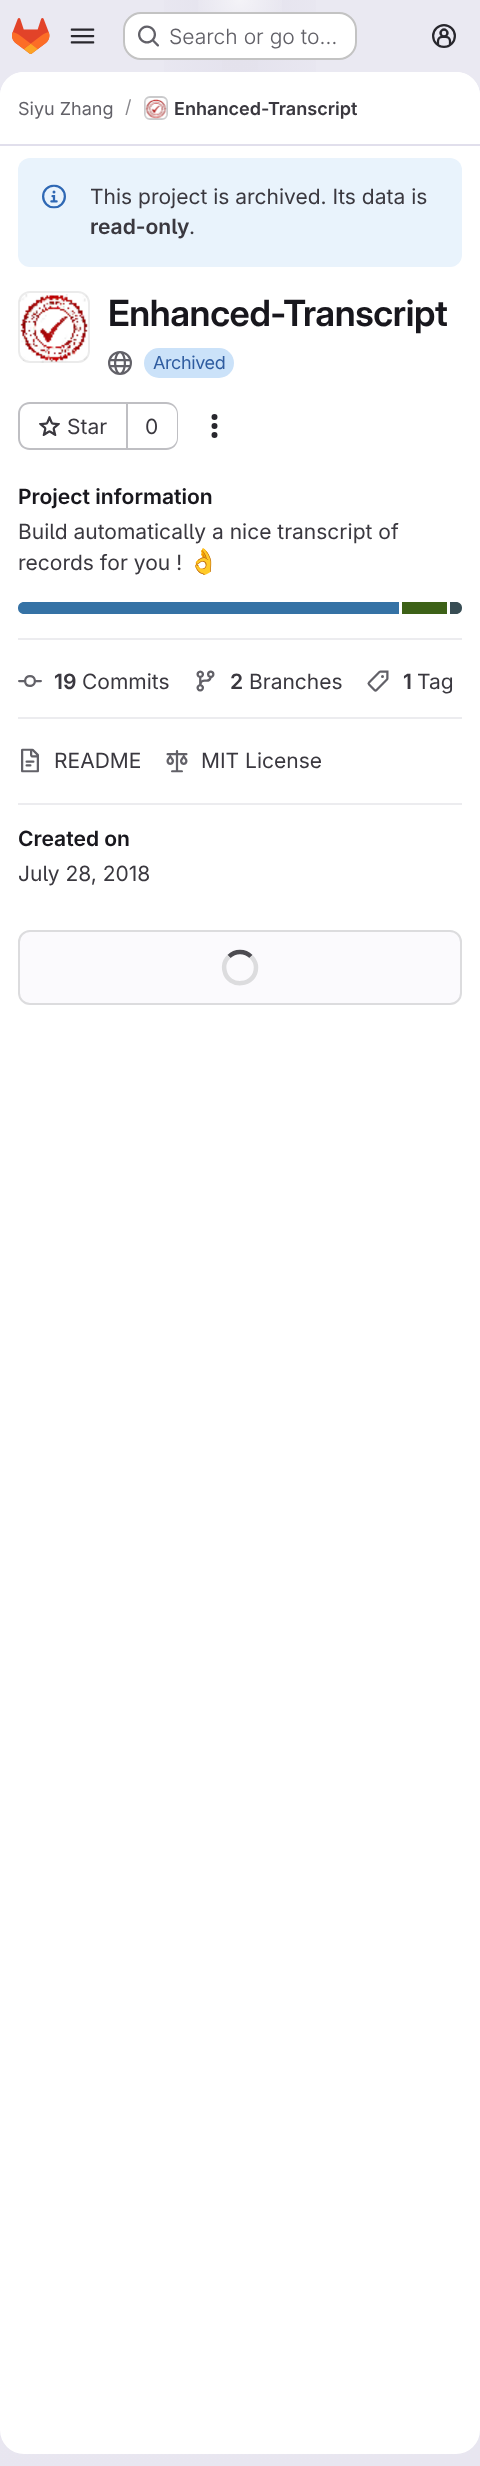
<svg xmlns="http://www.w3.org/2000/svg" width="480" height="2466">
<style>
.a{font:300 21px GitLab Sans;fill:#626168}
.b{font:18px GitLab Sans;fill:#626168}
.c{font:18px GitLab Sans;fill:#89888d}
.d{font:600 18px 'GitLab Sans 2';fill:#3a383f}
.e{font:21px GitLab Sans;fill:#3a383f}
.f{font:600 21px 'GitLab Sans 2';fill:#3a383f}
.g{font:600 36px GitLab Sans;letter-spacing:-0.4px;fill:#18171d}
.h{font:18px GitLab Sans;letter-spacing:-0.4px;fill:#2f5ca0}
.i{font:600 21px 'GitLab Sans 2';fill:#18171d}
.j{font:25px Noto Color Emoji;fill:#3a383f}
</style>
<defs>
<linearGradient id="g1" gradientUnits="userSpaceOnUse" x1="458" y1="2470" x2="22" y2="-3.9"><stop offset="0" stop-color="#e8e6f0"/><stop offset="0.7" stop-color="#eae9f2"/></linearGradient>
<radialGradient id="g2" gradientUnits="userSpaceOnUse" cx="0" cy="0" r="1" gradientTransform="matrix(240 0 0 2466 240 0)"><stop offset="0" stop-color="#e4e2ed"/><stop offset="0.44" stop-color="#e4e2ed" stop-opacity="0"/></radialGradient>
<radialGradient id="g3" gradientUnits="userSpaceOnUse" cx="0" cy="0" r="1" gradientTransform="matrix(240 0 0 2466 240 0)"><stop offset="0" stop-color="#e4e2ec"/><stop offset="0.31" stop-color="#e4e2ec" stop-opacity="0"/></radialGradient>
<radialGradient id="g4" gradientUnits="userSpaceOnUse" cx="240" cy="0" r="2478"><stop offset="0" stop-color="#fff" stop-opacity="0.6"/><stop offset="0.02" stop-color="#fff" stop-opacity="0"/></radialGradient>
</defs>
<rect width="100%" height="100%" fill="#fff"/>
<path fill="url(#g1)" d="M0 0h480v2466H0z"/>
<path fill="url(#g2)" d="M164 0h152v72H164z"/>
<path fill="url(#g3)" d="M222 19h36v51H222z"/>
<path fill="url(#g4)" d="M198 0h84v12H198z"/>
<image href="1.png" x="12" y="18" width="38" height="36"/>
<image href="2.png" x="70" y="28" width="25" height="16"/>
<rect fill="#fff" x="123" y="12" width="234" height="48" rx="18"/>
<rect fill="none" stroke="#0505063d" stroke-width="2" x="124" y="13" width="232" height="46" rx="17"/>
<image href="3.png" x="138" y="25" width="21" height="22"/>
<image href="4.png" x="432" y="24" width="24" height="24"/>
<rect fill="#fff" y="72" width="480" height="2382" rx="24"/>
<path fill="#fff" d="M24 72h432c13.5 0 24 10.5 24 24v50h-480v-50c0-13.5 10.5-24 24-24z"/>
<path fill="#e1dfec" d="M0 144h480v2H0z"/>
<rect fill="none" stroke="#dcdcde" stroke-width="2" x="145" y="97" width="22" height="22" rx="5"/>
<image href="5.png" x="145" y="99" width="22" height="20"/>
<rect fill="none" stroke="#05050614" stroke-width="2" x="145" y="97" width="22" height="22" rx="5"/>
<rect fill="#e9f3fc" x="18" y="158" width="444" height="109" rx="12"/>
<image href="6.png" x="42" y="184" width="24" height="25"/>
<image href="7.png" x="19" y="294" width="69" height="69"/>
<rect fill="none" stroke="#05050614" stroke-width="2" x="19" y="292" width="70" height="70" rx="11"/>
<image href="8.png" x="108" y="351" width="24" height="24"/>
<rect fill="#cbe2f9" x="144" y="348" width="90" height="30" rx="15"/>
<path fill="#bfbfc3" fill-rule="evenodd" d="M30 402h96v48h-96c-7 0-12-5-12-12v-24c0-7 5-12 12-12zm0 2h96v44h-96c-6 0-10-4-10-10v-24c0-6 4-10 10-10z"/>
<image href="9.png" x="39" y="416" width="21" height="20"/>
<path fill="#bfbfc3" fill-rule="evenodd" d="M128 402h38c7 0 12 5 12 12v24c0 7-5 12-12 12h-38zm0 2h38c6 0 11 4 11 10v24c0 6-5 10-11 10h-38z"/>
<path fill="#bfbfc3" d="M126 402h2v48H126z"/>
<image href="10.png" x="211" y="414" width="7" height="24"/>
<path fill="#ececef" d="M18 638h444v2H18z"/>
<path fill="#3572a5" d="M24 602h375v12h-375c-3.5 0-6-2.5-6-6c0-3.5 2.5-6 6-6z"/>
<path fill="#3d6117" d="M402 602h45v12H402z"/>
<path fill="#384d54" d="M450 602h6c3.5 0 6 2.5 6 6c0 3.5-2.5 6-6 6h-6z"/>
<path fill="#ececef" d="M18 717h444v2H18z"/>
<image href="11.png" x="18" y="675" width="24" height="12"/>
<image href="12.png" x="196" y="670" width="19" height="22"/>
<image href="13.png" x="367" y="670" width="22" height="22"/>
<path fill="#ececef" d="M18 803h444v2H18z"/>
<image href="14.png" x="21" y="748" width="18" height="25"/>
<image href="15.png" x="166" y="750" width="22" height="23"/>
<rect fill="#fbfafd" stroke="#dcdcde" stroke-width="2" x="19" y="931" width="442" height="73" rx="11"/>
<path fill="none" stroke="#4c4b51" stroke-width="4.5" d="M229 956.5c6-6 16-6 22 0"/>
<path fill="none" stroke="#dcdcde" stroke-width="4.5" d="M251 956.5c3 3 5 7 5 11c0 19-28 21.5-31.5 3c-1-5 .5-10.5 4.5-14"/>
<text class="a" x="169" y="44">Search or go to…</text>
<text class="b" x="18" y="115">Siyu Zhang</text>
<text class="c" x="125" y="113">/</text>
<text class="d" x="174" y="115">Enhanced-Transcript</text>
<text class="e" x="90" y="204">This project is archived. Its data is</text>
<text class="f" x="90" y="234">read-only</text>
<text class="e" x="189" y="234">.</text>
<text class="g" x="108" y="326">Enhanced-Transcript</text>
<text class="h" x="153" y="369">Archived</text>
<text class="e" x="67" y="434">Star</text>
<text class="e" x="145" y="434">0</text>
<text class="i" x="18" y="504">Project information</text>
<text class="e" x="18" y="539">Build automatically a nice transcript of</text>
<text class="e" x="18" y="570">records for you !</text>
<text class="j" x="188" y="570">👌</text>
<text class="f" x="54" y="689">19</text>
<text class="e" x="82" y="689">Commits</text>
<text class="f" x="230" y="689">2</text>
<text class="e" x="249" y="689">Branches</text>
<text class="f" x="403" y="689">1</text>
<text class="e" x="417" y="689">Tag</text>
<text class="e" x="54" y="768">README</text>
<text class="e" x="201" y="768">MIT License</text>
<text class="i" x="18" y="846">Created on</text>
<text class="e" x="18" y="881">July 28, 2018</text>
</svg>
